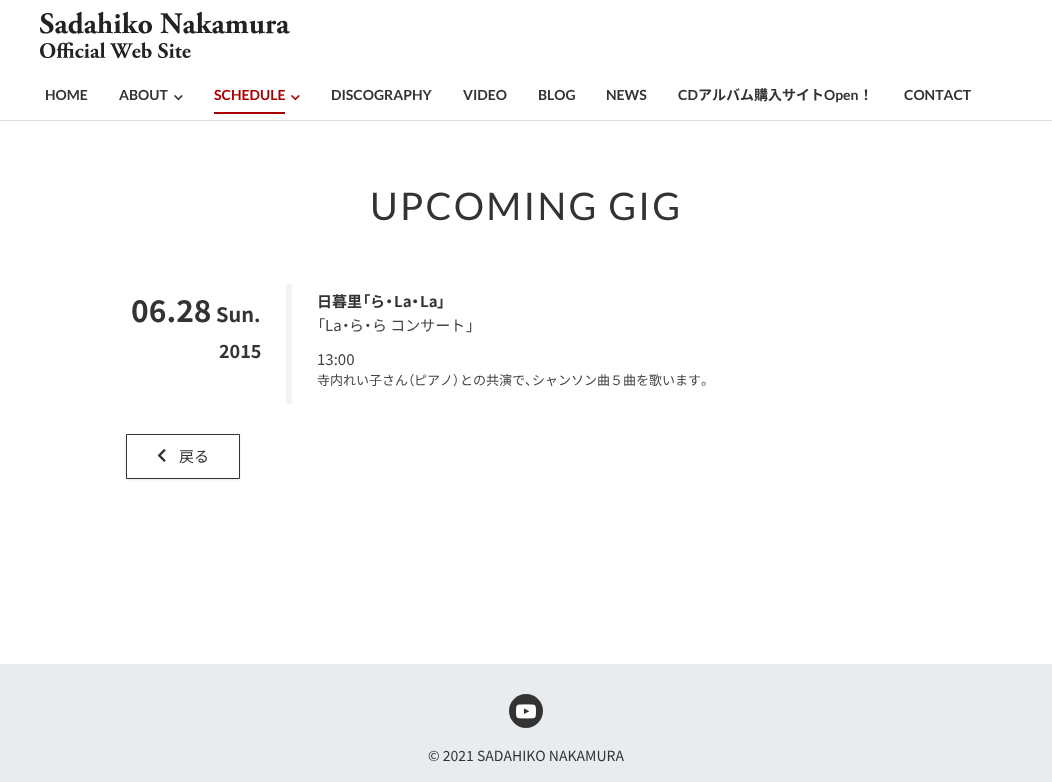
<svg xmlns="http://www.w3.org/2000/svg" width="1052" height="782">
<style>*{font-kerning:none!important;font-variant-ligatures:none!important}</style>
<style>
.a{font:bold 14px Lato;fill:#333}
.b{font:bold 14px Lato;fill:#a80000}
.c{font:bold 14px Noto Sans JP;fill:#333}
.d{font:38px Lato;letter-spacing:2.25px;fill:#333}
.e{font:bold 30px Noto Sans JP;fill:#333}
.f{font:bold 20px Noto Sans JP;fill:#333}
.g{font:bold 18px Noto Sans JP;fill:#333}
.h{font:bold 15px Noto Sans JP;fill:#333}
.i{font:bold 15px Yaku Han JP;fill:#333}
.j{font:15px Yaku Han JP;fill:#444}
.k{font:15px Noto Sans JP;fill:#444}
.l{font:13px Noto Sans JP;fill:#444}
.m{font:13px Yaku Han JP;fill:#444}
.n{font:15px Noto Sans JP;fill:#333}
.o{font:14px Noto Sans JP;fill:#333}
</style>
<defs>
<clipPath id="clip1"><path d="M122 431h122v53h-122zm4 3h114v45h-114z" clip-rule="evenodd"/></clipPath>
</defs>
<rect width="100%" height="100%" fill="#fff"/>
<path fill="#ddd" d="M0 120h1052v1H0z"/>
<image href="1.png" x="40" y="11" width="250" height="48"/>
<image href="2.png" x="174" y="95" width="9" height="6"/>
<image href="3.png" x="291" y="95" width="9" height="6"/>
<path fill="#a80000" d="M214 112h71v2H214z"/>
<path fill="#f4f4f4" d="M286 284h6v120H286z"/>
<g clip-path="url(#clip1)">
<path fill="#0000001a" filter="blur(1px)" d="M126 435h114v45H126z"/>
</g>
<path fill="none" stroke="#333" d="M126.5 434.5h113v44H126.5z"/>
<image href="4.png" x="157" y="449" width="9" height="13"/>
<path fill="#e8ecef" d="M0 664h1052v118H0z"/>
<circle fill="#333" cx="526" cy="711" r="17"/>
<image href="5.png" x="516" y="704" width="20" height="15"/>
<text class="a" x="45" y="100">HOME</text>
<text class="a" x="119" y="100">ABOUT</text>
<text class="b" x="214" y="100">SCHEDULE</text>
<text class="a" x="331" y="100">DISCOGRAPHY</text>
<text class="a" x="463" y="100">VIDEO</text>
<text class="a" x="538" y="100">BLOG</text>
<text class="a" x="606" y="100">NEWS</text>
<text class="a" x="678" y="100">CD</text>
<text class="c" x="698" y="100">アルバム購入サイト</text>
<text class="a" x="824" y="100">Open</text>
<text class="c" x="859" y="100">！</text>
<text class="a" x="904" y="100">CONTACT</text>
<text class="d" x="370" y="220">UPCOMING GIG</text>
<text class="e" x="131" y="322">06.28</text>
<text class="f" x="216" y="322">Sun.</text>
<text class="g" x="219" y="358">2015</text>
<text class="h" x="317" y="307">日暮里</text>
<text class="i" x="362" y="307">「</text>
<text class="h" x="370" y="307">ら</text>
<text class="i" x="385" y="307">・</text>
<text class="h" x="394" y="307">La</text>
<text class="i" x="411" y="307">・</text>
<text class="h" x="420" y="307">La</text>
<text class="i" x="437" y="307">」</text>
<text class="j" x="317" y="331">「</text>
<text class="k" x="325" y="331">La</text>
<text class="j" x="342" y="331">・</text>
<text class="k" x="349" y="331">ら</text>
<text class="j" x="364" y="331">・</text>
<text class="k" x="372" y="331">ら コンサート</text>
<text class="j" x="466" y="331">」</text>
<text class="k" x="317" y="365">13:00</text>
<text class="l" x="317" y="385">寺内れい子さん</text>
<text class="m" x="408" y="385">（</text>
<text class="l" x="414" y="385">ピアノ</text>
<text class="m" x="453" y="385">）</text>
<text class="l" x="460" y="385">との共演で</text>
<text class="m" x="525" y="385">、</text>
<text class="l" x="532" y="385">シャンソン曲５曲を歌います</text>
<text class="m" x="701" y="385">。</text>
<text class="n" x="179" y="462">戻る</text>
<text class="o" x="428" y="761">© 2021 SADAHIKO NAKAMURA</text>
</svg>
